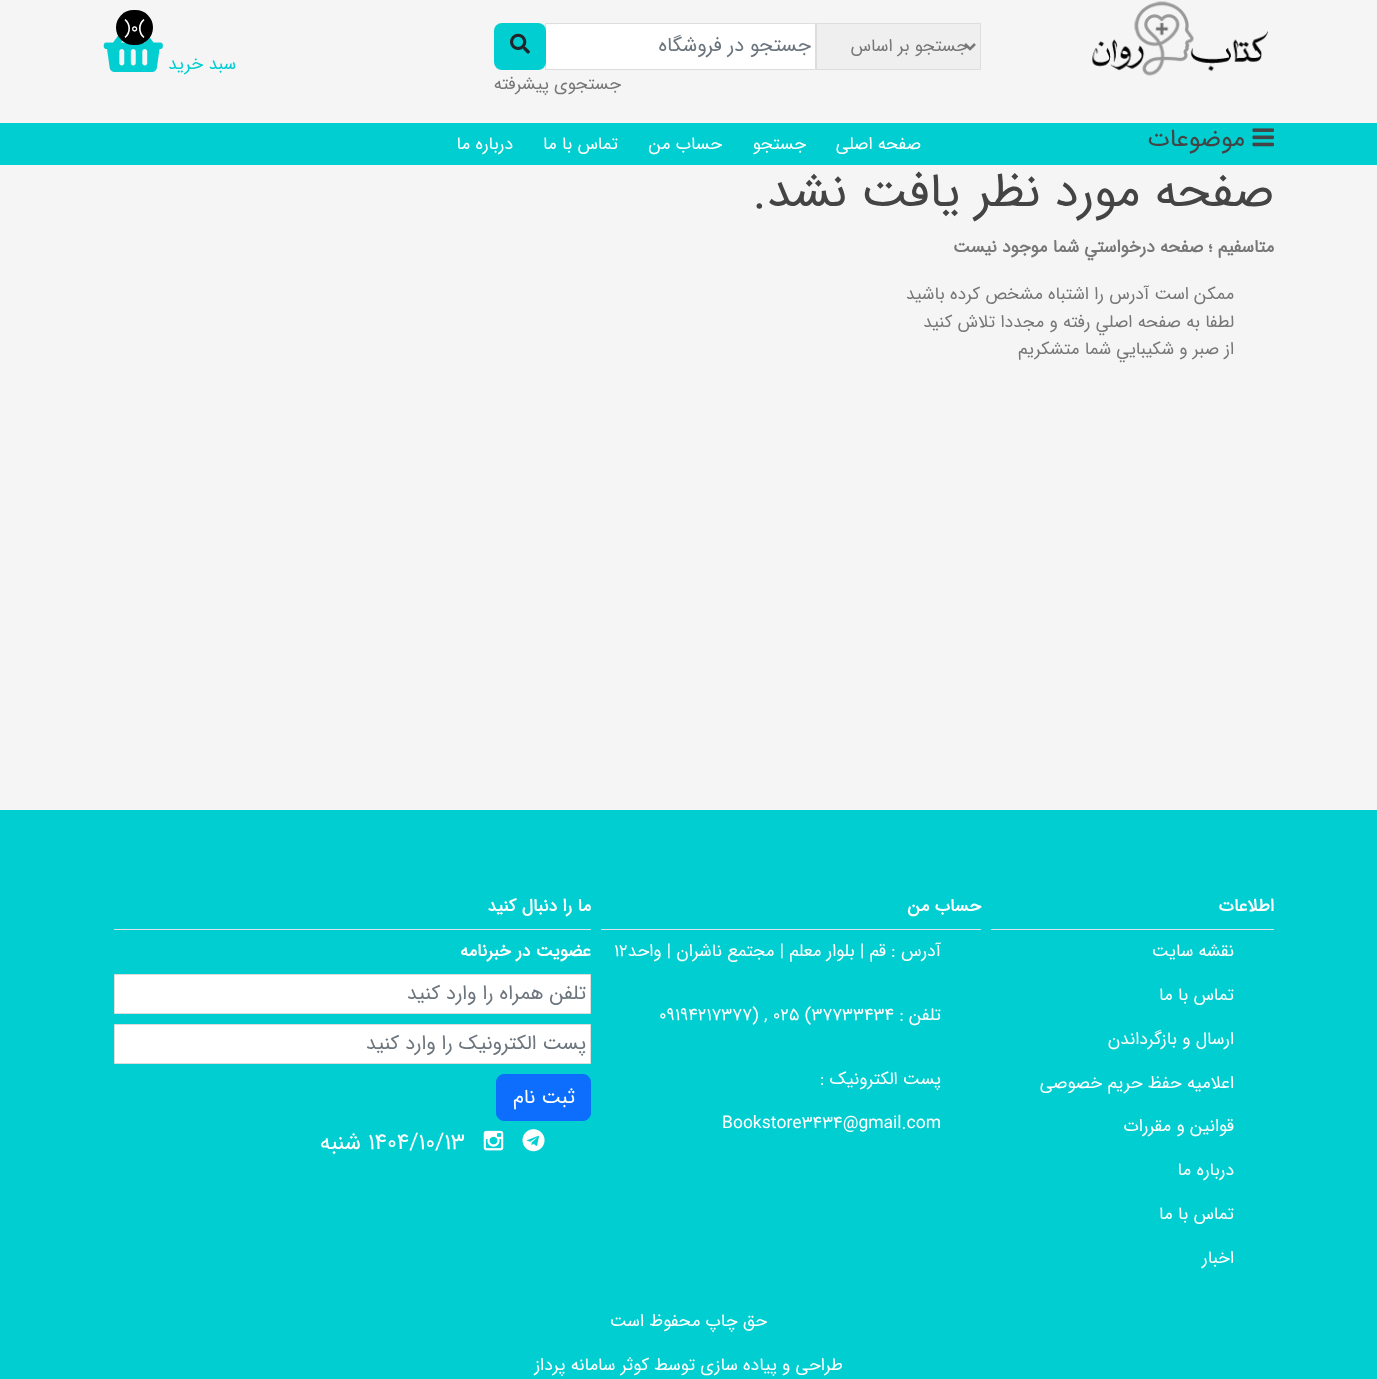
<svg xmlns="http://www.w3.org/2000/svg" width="1377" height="1379">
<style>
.a{font:17.5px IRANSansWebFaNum;direction:rtl;fill:#777}
.b{font:20px IRANSansWebFaNum;direction:rtl;fill:#6c757d}
.c{font:17.5px IRANSansWebFaNum;fill:#fff}
.d{font:17.5px IRANSansWebFaNum;direction:rtl;fill:#00ced1}
.e{font:25px IRANSansWebFaNum;direction:rtl;fill:#444}
.f{font:17.5px IRANSansWebFaNum;direction:rtl;fill:#fff}
.g{font:48.25px IRANSansWebFaNum;direction:rtl;fill:#444}
.h{font:bold 17.5px IRANSansWebFaNum;direction:rtl;fill:#777}
.i{font:bold 17.5px IRANSansWebFaNum;direction:rtl;fill:#fff}
.j{font:20px IRANSansWebFaNum;direction:rtl;fill:#fff}
.k{font:22.75px IRANSansWebFaNum;fill:#fff}
.l{font:22.75px IRANSansWebFaNum;direction:rtl;fill:#fff}
</style>
<rect width="100%" height="100%" fill="#f5f5f5"/>
<image href="1.png" x="1092" y="1" width="176" height="75"/>
<path fill="#efefef" stroke="#ddd" d="M816.5 23.5h164v46H816.5z"/>
<path fill="none" stroke="#777" stroke-width="2.5" d="M965 44l5 5l5-5"/>
<path fill="#fff" stroke="#ddd" d="M545.5 23.5h270v46H545.5z"/>
<rect fill="#00ced1" x="494" y="23" width="52" height="47" rx="8"/>
<image href="2.png" x="510" y="33" width="20" height="21"/>
<image href="3.png" x="103" y="35" width="60" height="37"/>
<rect fill="#000" x="116" y="10" width="37" height="35" rx="17.5"/>
<path fill="#00ced1" d="M0 123h1377v42H0z"/>
<image href="4.png" x="1252" y="128" width="22" height="19"/>
<path fill="#00ced1" d="M0 810h1377v569H0z"/>
<path fill="#dee2e6" d="M991 929h283v1H991z"/>
<path fill="#dee2e6" d="M601 929h380v1H601z"/>
<path fill="#dee2e6" d="M114 929h477v1H114z"/>
<path fill="#fff" stroke="#ddd" d="M114.5 974.5h476v39H114.5z"/>
<path fill="#fff" stroke="#ddd" d="M114.5 1024.5h476v39H114.5z"/>
<rect fill="#0d6efd" stroke="#0d6efd" x="496.5" y="1074.5" width="94" height="46" rx="7.5"/>
<image href="5.png" x="522" y="1129" width="23" height="23"/>
<image href="6.png" x="483" y="1130" width="21" height="21"/>
<text class="a" x="968" y="51">جستجو بر اساس</text>
<text class="b" x="811" y="51">جستجو در فروشگاه</text>
<text class="a" x="621" y="89">جستجوی پیشرفته</text>
<text class="c" x="124" y="33">)0(</text>
<text class="d" x="236" y="69">سبد خرید</text>
<text class="e" x="1245" y="146">موضوعات</text>
<text class="f" x="921" y="149">صفحه اصلی</text>
<text class="f" x="806" y="149">جستجو</text>
<text class="f" x="722" y="149">حساب من</text>
<text class="f" x="618" y="149">تماس با ما</text>
<text class="f" x="513" y="149">درباره ما</text>
<text class="g" x="1274" y="206">صفحه مورد نظر یافت نشد.</text>
<text class="h" x="1274" y="252">متاسفيم ؛ صفحه درخواستي شما موجود نيست</text>
<text class="a" x="1234" y="299">ممكن است آدرس را اشتباه مشخص كرده باشيد</text>
<text class="a" x="1234" y="327">لطفا به صفحه اصلي رفته و مجددا تلاش كنيد</text>
<text class="a" x="1234" y="354">از صبر و شكيبايي شما متشكريم</text>
<text class="i" x="1274" y="911">اطلاعات</text>
<text class="f" x="1234" y="956">نقشه سایت</text>
<text class="f" x="1234" y="1000">تماس با ما</text>
<text class="f" x="1234" y="1044">ارسال و بازگرداندن</text>
<text class="f" x="1234" y="1088">اعلامیه حفظ حریم خصوصی</text>
<text class="f" x="1234" y="1131">قوانین و مقررات</text>
<text class="f" x="1234" y="1175">درباره ما</text>
<text class="f" x="1234" y="1219">تماس با ما</text>
<text class="f" x="1234" y="1263">اخبار</text>
<text class="i" x="981" y="911">حساب من</text>
<text class="f" x="941" y="956">آدرس :</text>
<text class="f" x="886" y="956">قم | بلوار معلم | مجتمع ناشران | واحد</text>
<text class="c" x="614" y="956">12</text>
<text class="f" x="941" y="1020">تلفن :</text>
<text class="c" x="659" y="1020">09194217377) , 025 (37733434</text>
<text class="f" x="941" y="1084">پست الکترونیک :</text>
<text class="c" x="722" y="1128">Bookstore3434@gmail.com</text>
<text class="i" x="591" y="911">ما را دنبال کنید</text>
<text class="i" x="591" y="956">عضویت در خبرنامه</text>
<text class="b" x="586" y="999">تلفن همراه را وارد کنید</text>
<text class="b" x="586" y="1049">پست الکترونیک را وارد کنید</text>
<text class="j" x="575" y="1103">ثبت نام</text>
<text class="k" x="368" y="1149">1404/10/13</text>
<text class="l" x="361" y="1149">شنبه</text>
<text class="f" x="767" y="1326">حق چاپ محفوظ است</text>
<text class="f" x="843" y="1370">طراحی و پیاده سازی توسط</text>
<text class="f" x="649" y="1370">کوثر سامانه پرداز</text>
</svg>
